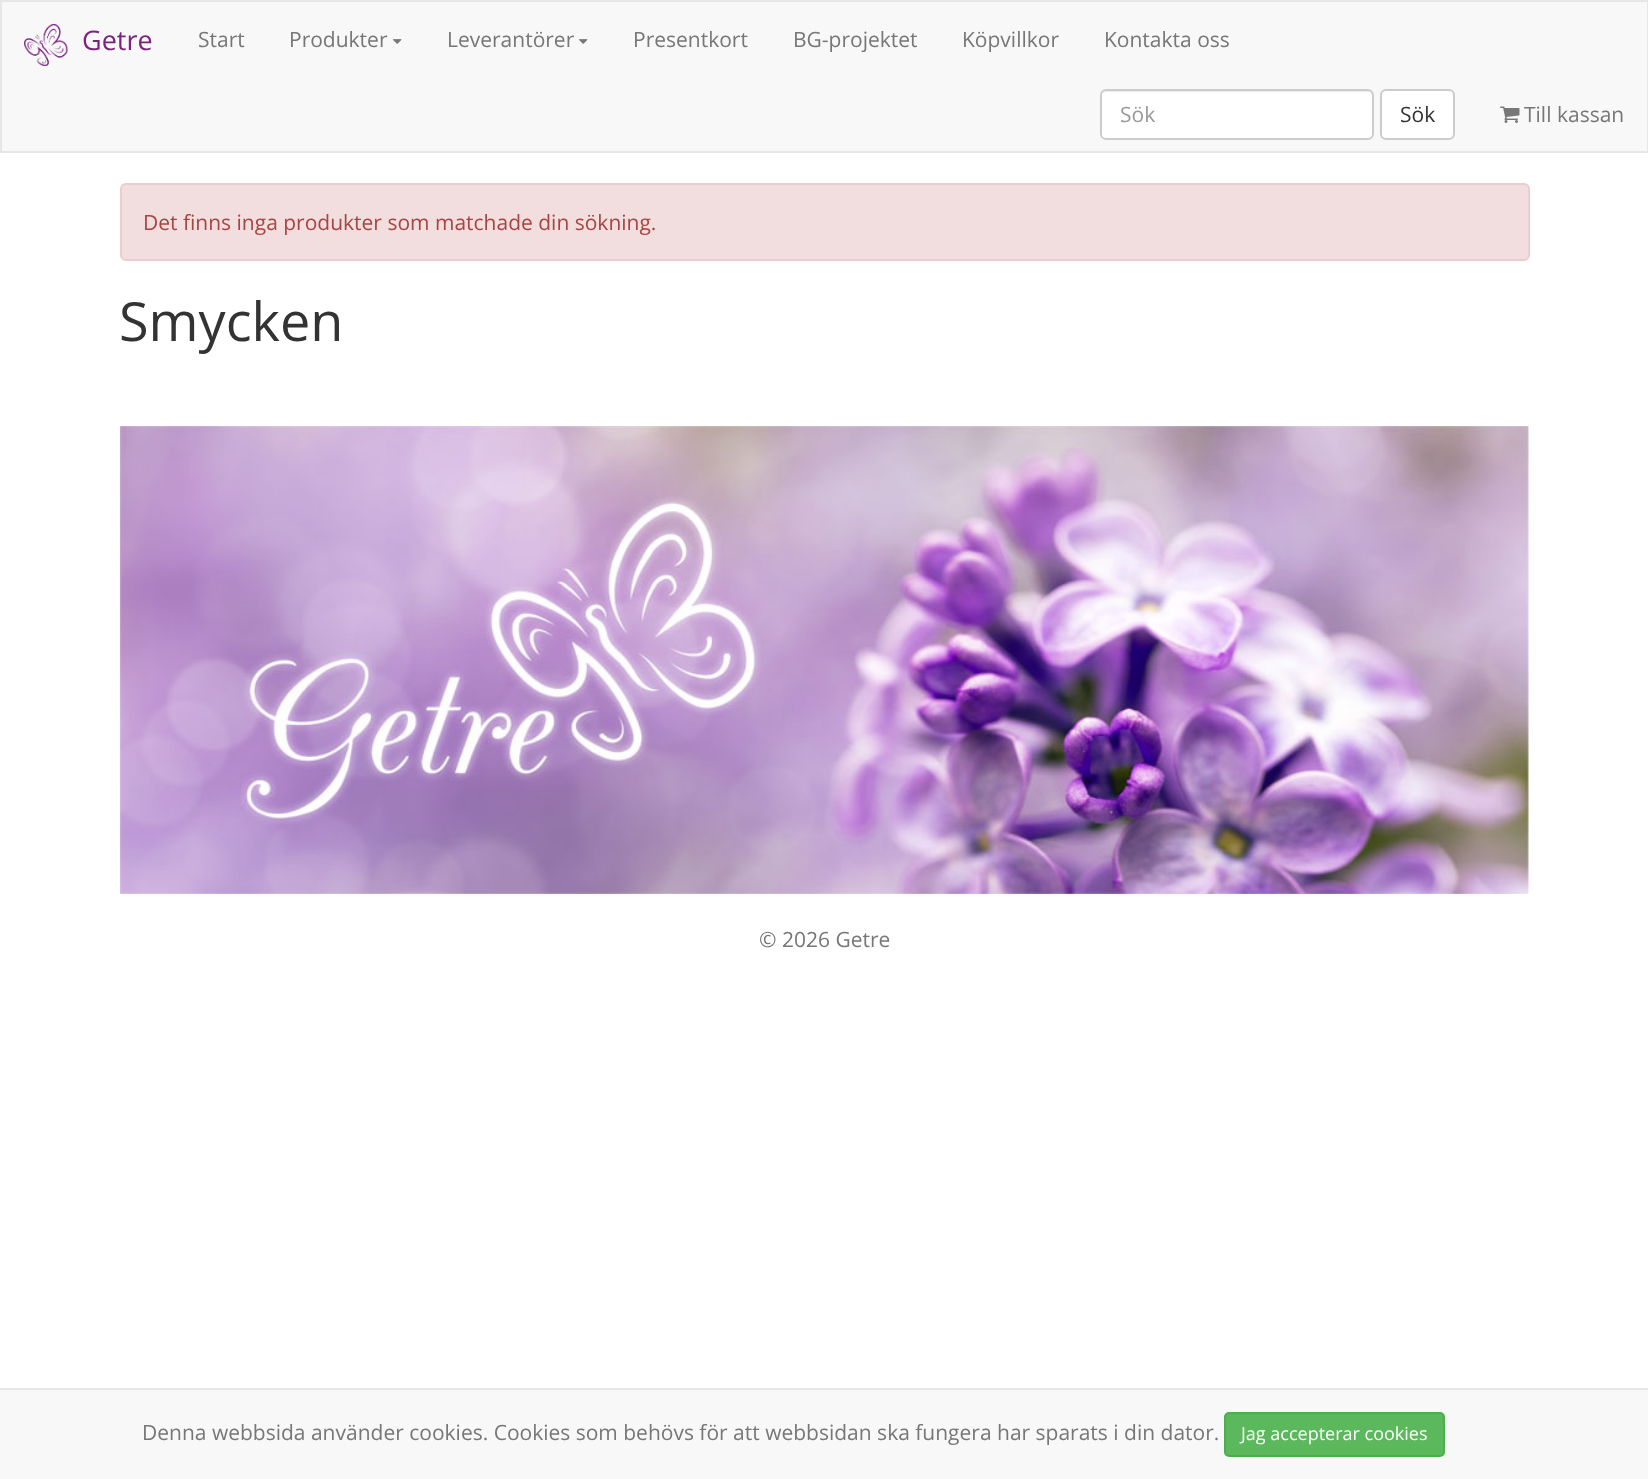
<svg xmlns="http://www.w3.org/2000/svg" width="1648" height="1479">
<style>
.a{font:27px Open Sans;fill:#7c227f}
.b{font:21px Open Sans;fill:#777}
.c{font:21px Open Sans;fill:#999}
.d{font:21px Open Sans;fill:#333}
.e{font:21px Open Sans;fill:#a94442}
.f{font:54px Open Sans;fill:#333}
.g{font:18px Open Sans;fill:#fff}
</style>
<rect width="100%" height="100%" fill="#fff"/>
<path fill="#f8f8f8" stroke="#e7e7e7" stroke-width="2" d="M1 1h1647v151H1z"/>
<image href="1.png" x="24" y="24" width="44" height="42"/>
<image href="2.png" x="393" y="39" width="9" height="5"/>
<image href="2.png" x="579" y="39" width="9" height="5"/>
<rect fill="#fff" x="1100" y="89" width="274" height="51" rx="6"/>
<path fill="#ececec" d="M1106 92h262c2 0 4 2 4 4v40c1-1 1-2 1-3v-38c0-3-2-5-5-5h-262c-3 0-5 2-5 5v1c0-2 2-4 5-4z"/>
<rect fill="none" stroke="#ccc" stroke-width="2" x="1101" y="90" width="272" height="49" rx="5"/>
<rect fill="#fff" stroke="#ccc" stroke-width="2" x="1381" y="90" width="73" height="49" rx="5"/>
<image href="3.png" x="1500" y="106" width="20" height="17"/>
<rect fill="#f2dede" stroke="#ebccd1" stroke-width="2" x="121" y="184" width="1408" height="76" rx="5"/>
<image href="4.png" x="120" y="426" width="1409" height="468"/>
<path fill="#f8f8f8" d="M0 1390h1648v89H0z"/>
<path fill="#e7e7e7" d="M0 1388h1648v2H0z"/>
<rect fill="#5cb85c" stroke="#4cae4c" stroke-width="2" x="1225" y="1413" width="219" height="43" rx="4"/>
<text class="a" x="82" y="50">Getre</text>
<text class="b" x="198" y="47">Start</text>
<text class="b" x="289" y="47">Produkter</text>
<text class="b" x="447" y="47">Leverantörer</text>
<text class="b" x="633" y="47">Presentkort</text>
<text class="b" x="793" y="47">BG-projektet</text>
<text class="b" x="962" y="47">Köpvillkor</text>
<text class="b" x="1104" y="47">Kontakta oss</text>
<text class="c" x="1120" y="122">Sök</text>
<text class="d" x="1400" y="122">Sök</text>
<text class="b" x="1524" y="122">Till kassan</text>
<text class="e" x="143" y="230">Det finns inga produkter som matchade din sökning.</text>
<text class="f" x="119" y="341">Smycken</text>
<text class="b" x="759" y="947">© 2026 Getre</text>
<text class="b" x="142" y="1440">Denna webbsida använder cookies. Cookies som behövs för att webbsidan ska fungera har sparats i din dator.</text>
<text class="g" x="1241" y="1440">Jag accepterar cookies</text>
</svg>
